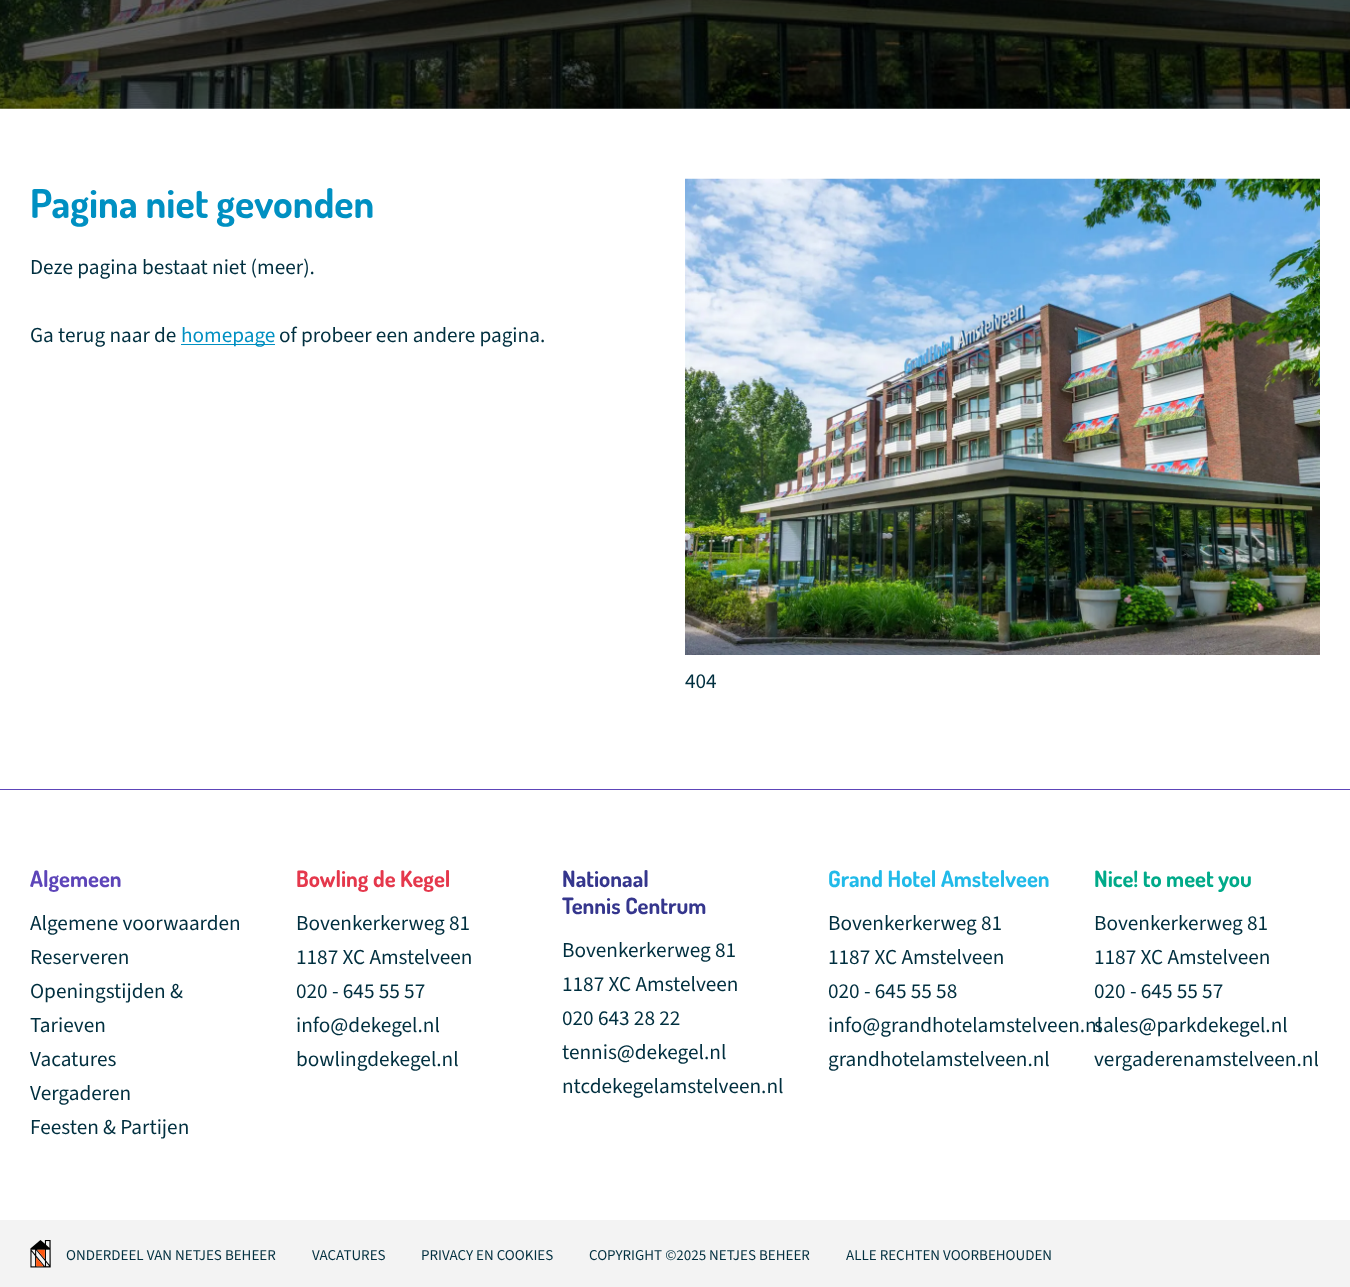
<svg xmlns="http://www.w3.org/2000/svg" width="1350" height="1287">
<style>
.a{font:bold 39.75px Dosis;fill:#0090c2}
.b{font:200 21.25px 'Source Sans 3';fill:#002f3f}
.c{font:200 21.25px 'Source Sans 3';fill:#0090c2}
.d{font:bold 22.5px Dosis;fill:#5d45b9}
.e{font:bold 22.5px Dosis;fill:#e5384c}
.f{font:bold 22.5px Dosis;fill:#35368d}
.g{font:bold 22.5px Dosis;fill:#21bae9}
.h{font:bold 22.5px Dosis;fill:#00aa89}
.i{font:200 15px 'Source Sans 3';fill:#002f3f}
</style>
<rect width="100%" height="100%" fill="#fff"/>
<image href="1.png" x="0" y="0" width="1350" height="109"/>
<path fill="#0090c2" d="M181 344h94v1H181z"/>
<image href="2.png" x="685" y="178" width="635" height="477"/>
<path fill="#5d45b9" d="M0 789h1350v1H0z"/>
<path fill="#f3f3f3" d="M0 1220h1350v67H0z"/>
<image href="3.png" x="30" y="1240" width="21" height="28"/>
<text class="a" x="30" y="218">Pagina niet gevonden</text>
<text class="b" x="30" y="274">Deze pagina bestaat niet (meer).</text>
<text class="b" x="30" y="342">Ga terug naar de</text>
<text class="c" x="181" y="342">homepage</text>
<text class="b" x="279" y="342">of probeer een andere pagina.</text>
<text class="b" x="685" y="688">404</text>
<text class="d" x="30" y="887">Algemeen</text>
<text class="b" x="30" y="930">Algemene voorwaarden</text>
<text class="b" x="30" y="964">Reserveren</text>
<text class="b" x="30" y="998">Openingstijden &amp;</text>
<text class="b" x="30" y="1032">Tarieven</text>
<text class="b" x="30" y="1066">Vacatures</text>
<text class="b" x="30" y="1100">Vergaderen</text>
<text class="b" x="30" y="1134">Feesten &amp; Partijen</text>
<text class="e" x="296" y="887">Bowling de Kegel</text>
<text class="b" x="296" y="930">Bovenkerkerweg 81</text>
<text class="b" x="296" y="964">1187 XC Amstelveen</text>
<text class="b" x="296" y="998">020 - 645 55 57</text>
<text class="b" x="296" y="1032">info@dekegel.nl</text>
<text class="b" x="296" y="1066">bowlingdekegel.nl</text>
<text class="f" x="562" y="887">Nationaal</text>
<text class="f" x="562" y="914">Tennis Centrum</text>
<text class="b" x="562" y="957">Bovenkerkerweg 81</text>
<text class="b" x="562" y="991">1187 XC Amstelveen</text>
<text class="b" x="562" y="1025">020 643 28 22</text>
<text class="b" x="562" y="1059">tennis@dekegel.nl</text>
<text class="b" x="562" y="1093">ntcdekegelamstelveen.nl</text>
<text class="g" x="828" y="887">Grand Hotel Amstelveen</text>
<text class="b" x="828" y="930">Bovenkerkerweg 81</text>
<text class="b" x="828" y="964">1187 XC Amstelveen</text>
<text class="b" x="828" y="998">020 - 645 55 58</text>
<text class="b" x="828" y="1032">info@grandhotelamstelveen.nl</text>
<text class="b" x="828" y="1066">grandhotelamstelveen.nl</text>
<text class="h" x="1094" y="887">Nice! to meet you</text>
<text class="b" x="1094" y="930">Bovenkerkerweg 81</text>
<text class="b" x="1094" y="964">1187 XC Amstelveen</text>
<text class="b" x="1094" y="998">020 - 645 55 57</text>
<text class="b" x="1094" y="1032">sales@parkdekegel.nl</text>
<text class="b" x="1094" y="1066">vergaderenamstelveen.nl</text>
<text class="i" x="66" y="1260">ONDERDEEL VAN NETJES BEHEER</text>
<text class="i" x="312" y="1260">VACATURES</text>
<text class="i" x="421" y="1260">PRIVACY EN COOKIES</text>
<text class="i" x="589" y="1260">COPYRIGHT ©2025 NETJES BEHEER</text>
<text class="i" x="846" y="1260">ALLE RECHTEN VOORBEHOUDEN</text>
</svg>
